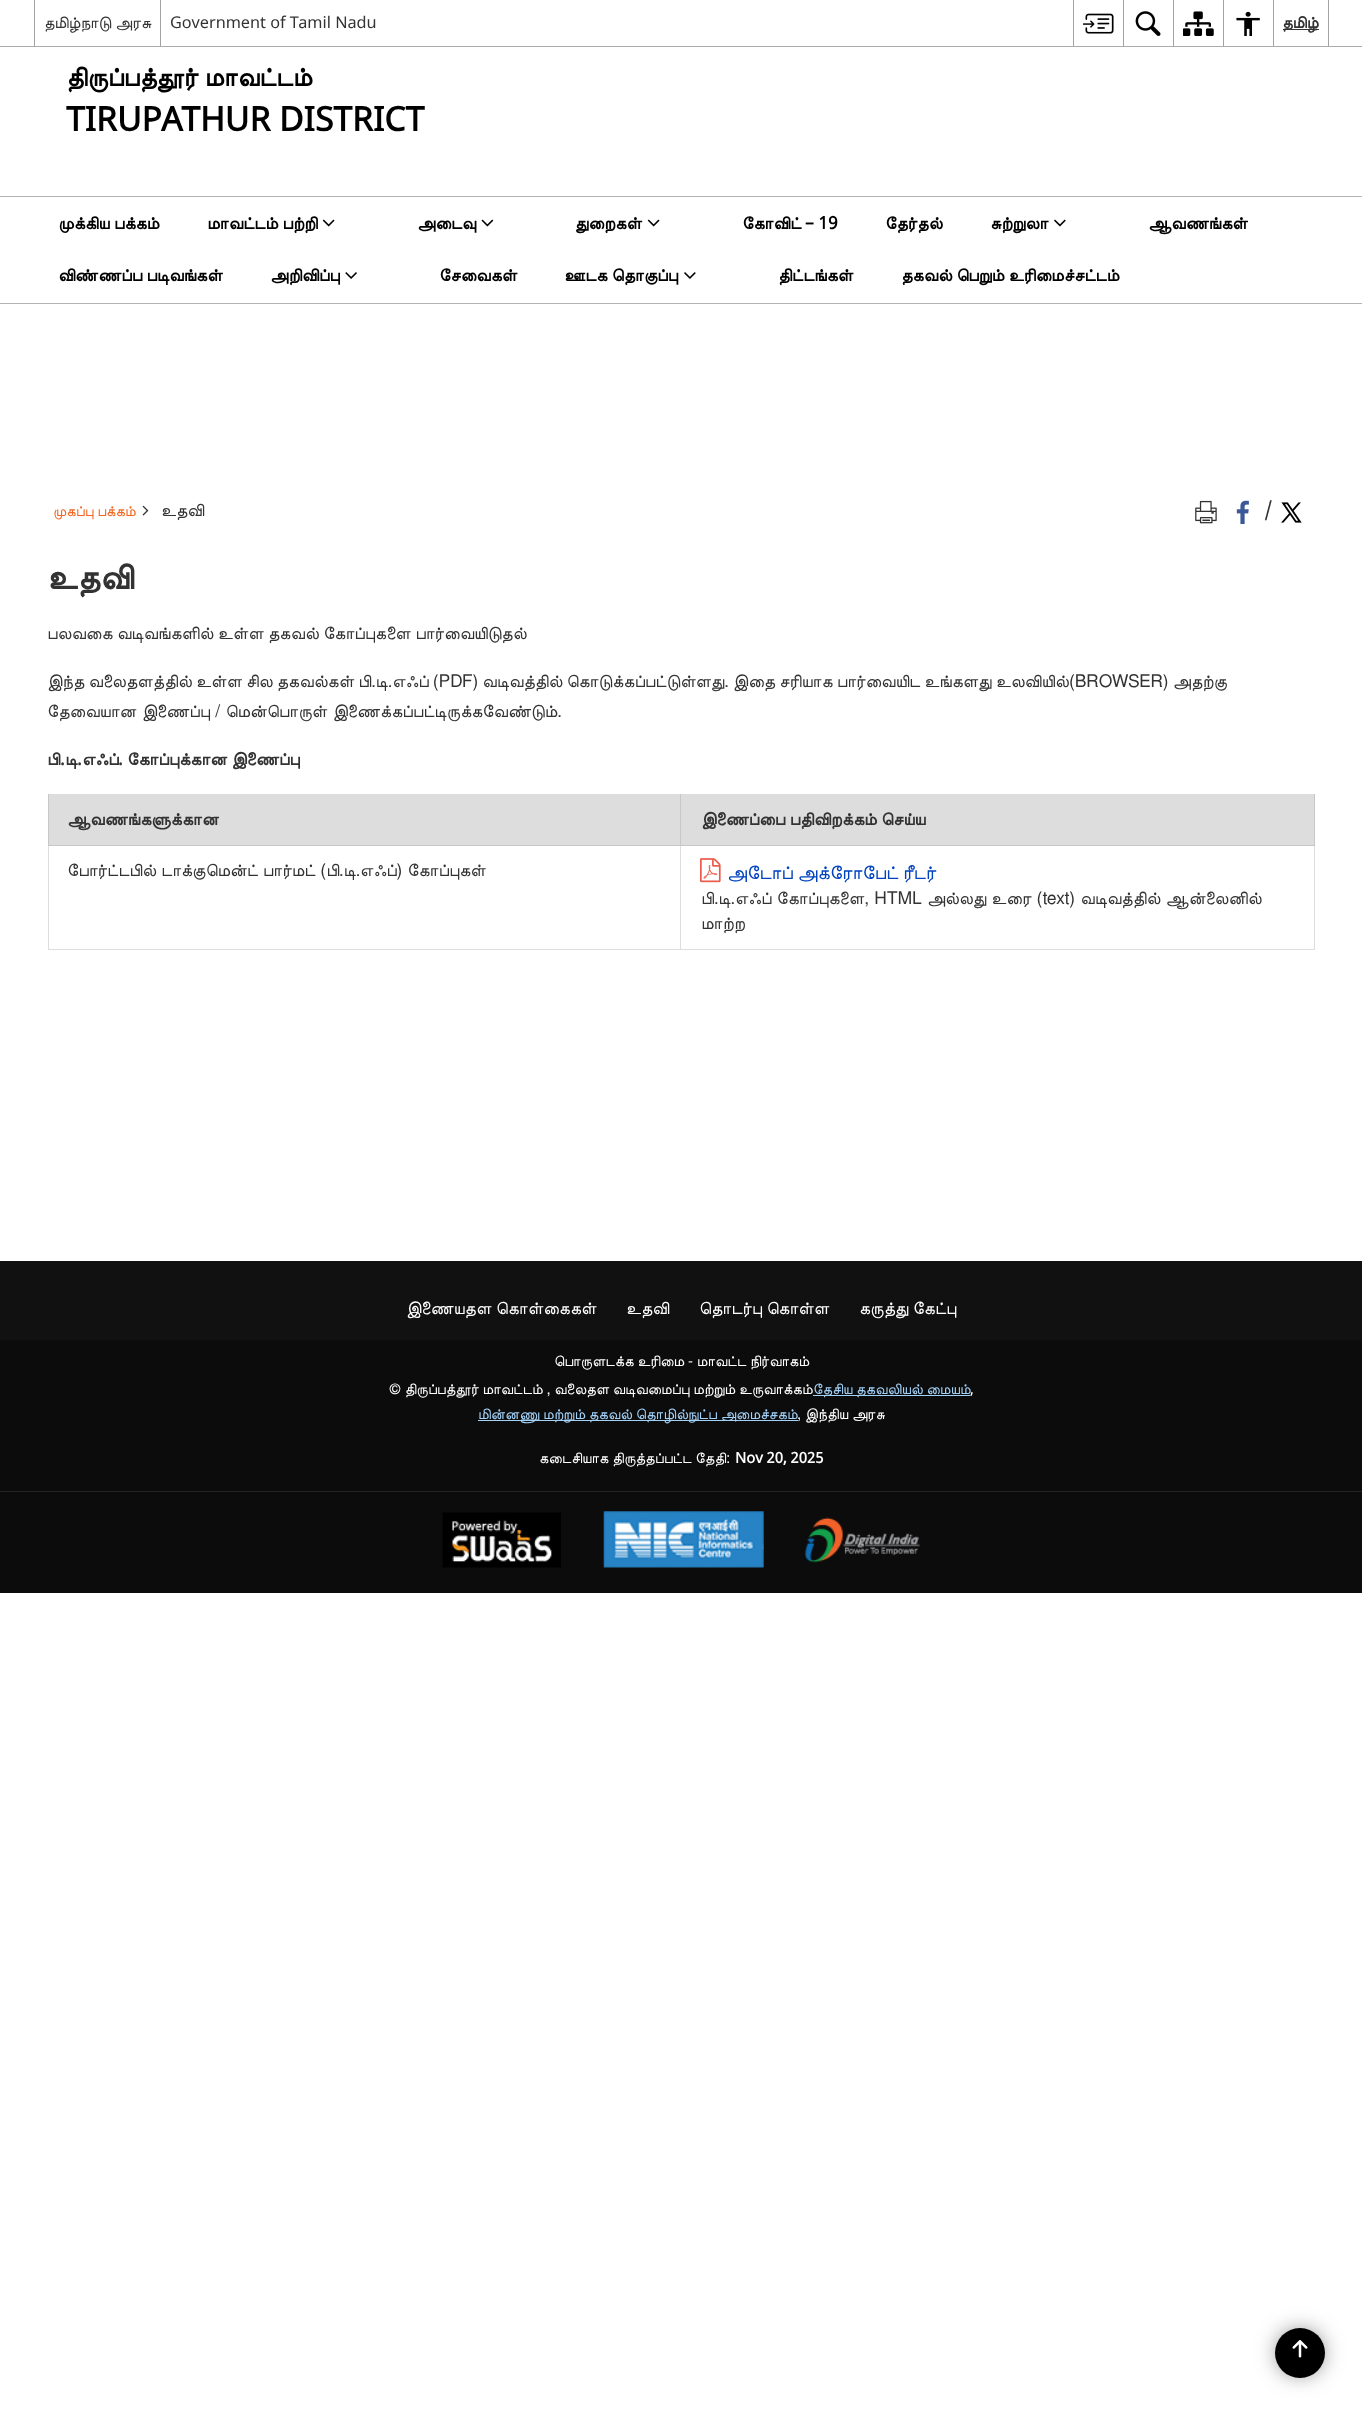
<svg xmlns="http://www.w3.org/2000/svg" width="1362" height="2415">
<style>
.a{font:16.25px FreeSans;fill:#333}
.b{font:16.25px Noto Sans;fill:#333}
.c{font:bold 16.25px FreeSans;fill:#333}
.d{font:bold 26.5px FreeSans;fill:#000}
.e{font:bold 33.6px Noto Sans;fill:#000}
.f{font:bold 17.5px FreeSans;fill:#000}
.g{font:bold 17.5px Noto Sans;fill:#000}
.h{font:14.9px FreeSans;fill:#f26522}
.i{font:17.5px FreeSans;fill:#333}
.j{font:20px Noto Sans;fill:#333}
.k{font:bold 35px FreeSans;fill:#333}
.l{font:bold 17.5px FreeSans;fill:#333}
.m{font:bold 17.5px Noto Sans;fill:#333}
.n{font:19.25px FreeSans;fill:#0042bf}
.o{font:17.5px FreeSans;fill:#fff}
.p{font:14.9px FreeSans;fill:#fff}
.q{font:14.9px FreeSans;fill:#a3d2f9}
.r{font:14.9px Noto Sans;fill:#fff}
.s{font:bold 14.9px Noto Sans;fill:#fff}
</style>
<rect width="100%" height="100%" fill="#fff"/>
<path fill="#ababab" d="M0 46h1362v1H0z"/>
<path fill="#a3a3a3" d="M34 0h1v46H34z"/>
<path fill="#a3a3a3" d="M160 0h1v46H160z"/>
<path fill="#a3a3a3" d="M1073 0h1v46H1073z"/>
<image href="1.png" x="1083" y="13" width="31" height="21"/>
<path fill="#a3a3a3" d="M1123 0h1v46H1123z"/>
<image href="2.png" x="1135" y="11" width="26" height="25"/>
<path fill="#a3a3a3" d="M1173 0h1v46H1173z"/>
<image href="3.png" x="1183" y="11" width="31" height="25"/>
<path fill="#a3a3a3" d="M1223 0h1v46H1223z"/>
<image href="4.png" x="1236" y="11" width="24" height="25"/>
<path fill="#a3a3a3" d="M1328 0h1v46H1328z"/>
<path fill="#a3a3a3" d="M1273 0h1v46H1273z"/>
<path fill="#333" d="M1283 29h36v1H1283z"/>
<path fill="#b3b3b3" d="M0 196h1362v1H0z"/>
<path fill="#b3b3b3" d="M0 303h1362v1H0z"/>
<image href="5.png" x="322" y="219" width="13" height="8"/>
<image href="6.png" x="481" y="219" width="13" height="8"/>
<image href="5.png" x="647" y="219" width="13" height="8"/>
<image href="7.png" x="1054" y="219" width="12" height="8"/>
<image href="8.png" x="345" y="272" width="12" height="7"/>
<image href="9.png" x="684" y="272" width="12" height="7"/>
<image href="10.png" x="142" y="505" width="7" height="11"/>
<image href="11.png" x="1195" y="500" width="22" height="24"/>
<image href="12.png" x="1236" y="500" width="13" height="24"/>
<image href="13.png" x="1281" y="502" width="21" height="21"/>
<path fill="#ddd" d="M48 794h1267v1H48z"/>
<path fill="#ddd" d="M1314 846h1v104H1314z"/>
<path fill="#ddd" d="M48 949h1267v1H48z"/>
<path fill="#ddd" d="M48 846h1v104H48z"/>
<path fill="#ddd" d="M49 795h631v50H49z"/>
<path fill="#c7c7c7" d="M1314 794h1v52H1314z"/>
<path fill="#ddd" d="M680 845h1v105H680z"/>
<path fill="#c7c7c7" d="M680 845h635v1H680z"/>
<path fill="#c7c7c7" d="M680 794h1v52H680z"/>
<path fill="#c7c7c7" d="M48 845h633v1H48z"/>
<path fill="#c7c7c7" d="M48 794h1v52H48z"/>
<path fill="#ddd" d="M681 795h633v50H681z"/>
<image href="14.png" x="700" y="858" width="21" height="25"/>
<path fill="#111" d="M0 1261h1362v79H0z"/>
<path fill="#0c0c0c" d="M0 1340h1362v253H0z"/>
<path fill="#a3d2f9" d="M813 1395h157v1H813z"/>
<path fill="#a3d2f9" d="M478 1420h320v1H478z"/>
<path fill="#242424" d="M0 1491h1362v1H0z"/>
<image href="15.png" x="442" y="1512" width="119" height="56"/>
<image href="16.png" x="603" y="1511" width="161" height="57"/>
<image href="17.png" x="805" y="1517" width="115" height="46"/>
<rect fill="#3c3c3c" filter="blur(12px)" x="1281" y="2334" width="38" height="37" rx="18.5"/>
<circle fill="#000" cx="1300" cy="2353" r="25"/>
<image href="18.png" x="1292" y="2340" width="16" height="18"/>
<text class="a" x="44" y="28">தமிழ்நாடு அரசு</text>
<text class="b" x="170" y="28">Government of Tamil Nadu</text>
<text class="c" x="1282" y="28">தமிழ்</text>
<text class="d" x="66" y="86">திருப்பத்தூர் மாவட்டம்</text>
<text class="e" x="66" y="131">TIRUPATHUR DISTRICT</text>
<text class="f" x="58" y="229">முக்கிய பக்கம்</text>
<text class="f" x="207" y="229">மாவட்டம் பற்றி</text>
<text class="f" x="417" y="229">அடைவு</text>
<text class="f" x="575" y="229">துறைகள்</text>
<text class="f" x="742" y="229">கோவிட்</text>
<text class="g" x="805" y="229">– 19</text>
<text class="f" x="885" y="229">தேர்தல்</text>
<text class="f" x="990" y="229">சுற்றுலா</text>
<text class="f" x="1148" y="229">ஆவணங்கள்</text>
<text class="f" x="58" y="281">விண்ணப்ப படிவங்கள்</text>
<text class="f" x="270" y="281">அறிவிப்பு</text>
<text class="f" x="439" y="281">சேவைகள்</text>
<text class="f" x="564" y="281">ஊடக தொகுப்பு</text>
<text class="f" x="778" y="281">திட்டங்கள்</text>
<text class="f" x="901" y="281">தகவல் பெறும் உரிமைச்சட்டம்</text>
<text class="h" x="53" y="516">முகப்பு பக்கம்</text>
<text class="i" x="161" y="516">உதவி</text>
<text class="j" x="1264" y="517">/</text>
<text class="k" x="47" y="589">உதவி</text>
<text class="i" x="47" y="639">பலவகை வடிவங்களில் உள்ள தகவல் கோப்புகளை பார்வையிடுதல்</text>
<text class="i" x="47" y="687" word-spacing="-0.25">இந்த வலைதளத்தில் உள்ள சில தகவல்கள் பி.டி.எஃப் (PDF) வடிவத்தில் கொடுக்கப்பட்டுள்ளது. இதை சரியாக பார்வையிட உங்களது உலவியில்(BROWSER) அதற்கு</text>
<text class="i" x="47" y="717" word-spacing="1">தேவையான இணைப்பு / மென்பொருள் இணைக்கப்பட்டிருக்கவேண்டும்.</text>
<text class="l" x="47" y="765">பி</text>
<text class="m" x="60" y="765">.</text>
<text class="l" x="65" y="765">டி</text>
<text class="m" x="77" y="765">.</text>
<text class="l" x="82" y="765">எஃப்</text>
<text class="m" x="118" y="765">.</text>
<text class="l" x="127" y="765">கோப்புக்கான இணைப்பு</text>
<text class="l" x="67" y="825">ஆவணங்களுக்கான</text>
<text class="l" x="701" y="825">இணைப்பை பதிவிறக்கம் செய்ய</text>
<text class="i" x="67" y="876" word-spacing="0.5">போர்ட்டபில் டாக்குமென்ட் பார்மட் (பி.டி.எஃப்) கோப்புகள்</text>
<text class="n" x="727" y="879">அடோப் அக்ரோபேட் ரீடர்</text>
<text class="i" x="701" y="904" word-spacing="0.75">பி.டி.எஃப் கோப்புகளை, HTML அல்லது உரை (text) வடிவத்தில் ஆன்லைனில்</text>
<text class="i" x="701" y="929">மாற்ற</text>
<text class="o" x="406" y="1314">இணையதள கொள்கைகள்</text>
<text class="o" x="626" y="1314">உதவி</text>
<text class="o" x="699" y="1314">தொடர்பு கொள்ள</text>
<text class="o" x="859" y="1314">கருத்து கேட்பு</text>
<text class="p" x="554" y="1366">பொருளடக்க உரிமை - மாவட்ட நிர்வாகம்</text>
<text class="p" x="389" y="1394">© திருப்பத்தூர் மாவட்டம் , வலைதள வடிவமைப்பு மற்றும் உருவாக்கம்</text>
<text class="q" x="813" y="1394">தேசிய தகவலியல் மையம்</text>
<text class="r" x="970" y="1394">,</text>
<text class="q" x="478" y="1419">மின்னணு மற்றும் தகவல் தொழில்நுட்ப அமைச்சகம்</text>
<text class="p" x="797" y="1419">, இந்திய அரசு</text>
<text class="p" x="539" y="1463">கடைசியாக திருத்தப்பட்ட தேதி:</text>
<text class="s" x="735" y="1463">Nov 20, 2025</text>
</svg>
